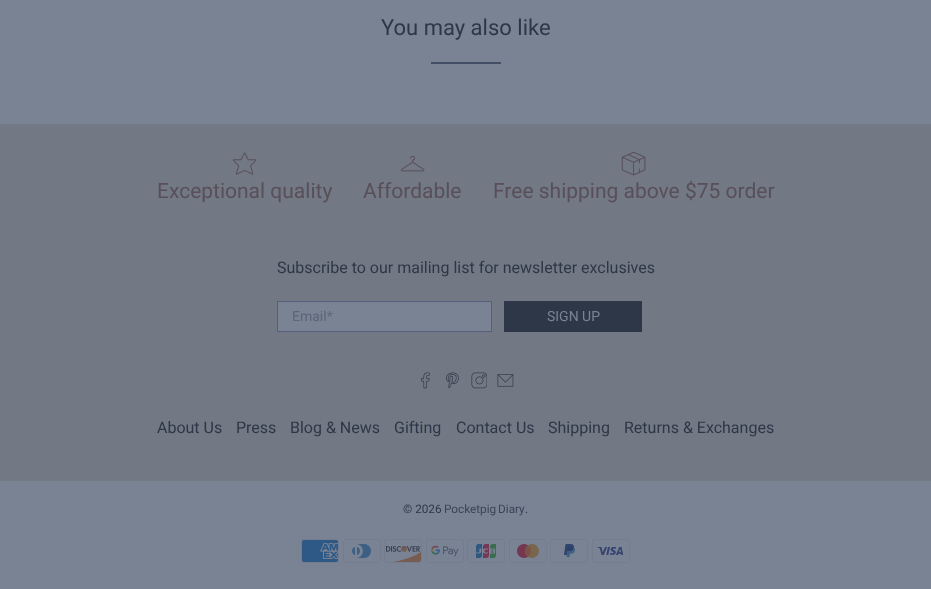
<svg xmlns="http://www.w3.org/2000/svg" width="931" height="589">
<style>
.a{font:22px Roboto;fill:#2e3747}
.b{font:21px Roboto;fill:#584f59}
.c{font:16px Roboto;fill:#2e3747}
.d{font:14px Roboto;fill:#5c6576}
.e{font:14px Roboto;fill:#7a8394}
.f{font:11.75px Roboto;fill:#2e3747}
.g{font:11.75px Roboto;fill:#3b4455}
</style>
<rect width="100%" height="100%" fill="#7a8394"/>
<path fill="#414e66" d="M431 62h70v2H431z"/>
<path fill="#727985" d="M0 124h931v357H0z"/>
<image href="1.png" x="232" y="152" width="25" height="23"/>
<image href="2.png" x="400" y="155" width="25" height="17"/>
<image href="3.png" x="621" y="151" width="25" height="25"/>
<path fill="#7a8394" stroke="#575d7c" d="M277.5 301.5h214v30H277.5z"/>
<path fill="#2e3747" d="M504 301h138v31H504z"/>
<image href="4.png" x="421" y="372" width="9" height="17"/>
<image href="5.png" x="446" y="372" width="13" height="17"/>
<image href="6.png" x="471" y="372" width="16" height="17"/>
<image href="7.png" x="497" y="374" width="17" height="13"/>
<image href="8.png" x="301" y="539" width="38" height="24"/>
<image href="9.png" x="343" y="539" width="38" height="24"/>
<image href="10.png" x="384" y="539" width="38" height="24"/>
<image href="11.png" x="426" y="539" width="38" height="24"/>
<image href="12.png" x="467" y="539" width="38" height="24"/>
<image href="13.png" x="509" y="539" width="38" height="24"/>
<image href="14.png" x="550" y="539" width="38" height="24"/>
<image href="15.png" x="592" y="539" width="38" height="24"/>
<text class="a" x="381" y="35">You may also like</text>
<text class="b" x="157" y="198">Exceptional quality</text>
<text class="b" x="363" y="198">Affordable</text>
<text class="b" x="493" y="198">Free shipping above $75 order</text>
<text class="c" x="277" y="273">Subscribe to our mailing list for newsletter exclusives</text>
<text class="d" x="292" y="321">Email*</text>
<text class="e" x="547" y="321">SIGN UP</text>
<text class="c" x="157" y="433">About Us</text>
<text class="c" x="236" y="433">Press</text>
<text class="c" x="290" y="433">Blog &amp; News</text>
<text class="c" x="394" y="433">Gifting</text>
<text class="c" x="456" y="433">Contact Us</text>
<text class="c" x="548" y="433">Shipping</text>
<text class="c" x="624" y="433">Returns &amp; Exchanges</text>
<text class="f" x="403" y="513">© 2026</text>
<text class="g" x="444" y="513" word-spacing="-1">Pocketpig Diary</text>
<text class="f" x="525" y="513">.</text>
</svg>
